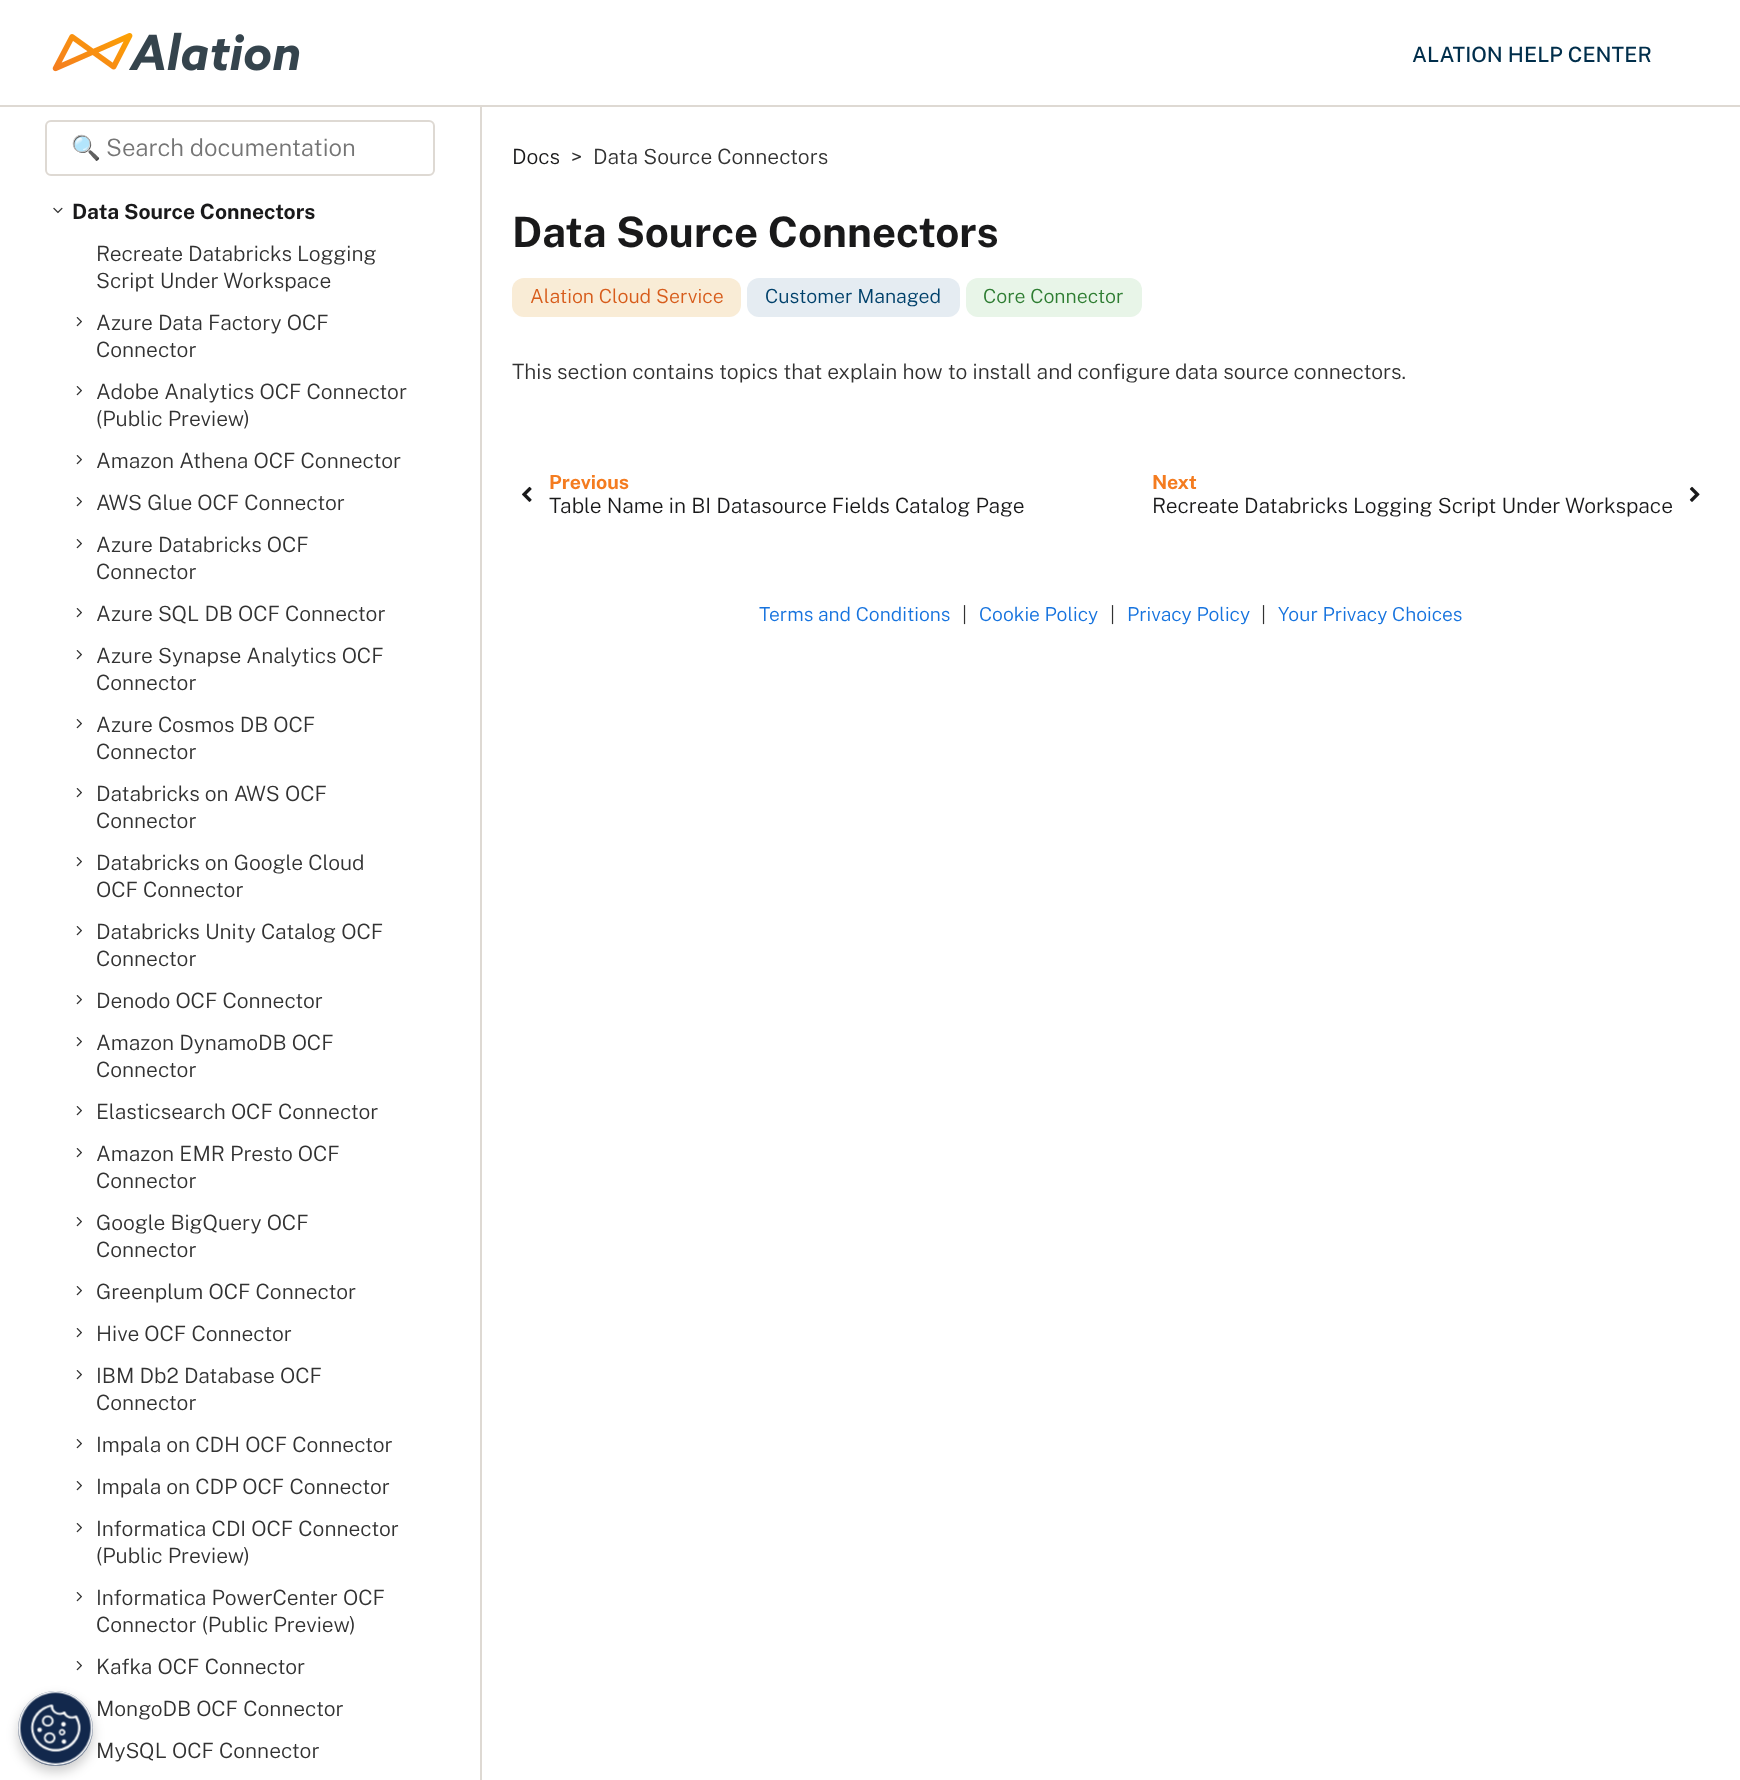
<svg xmlns="http://www.w3.org/2000/svg" width="1740" height="1780">
<style>
.a{font:500 21px Public Sans;fill:#002e4b}
.b{font:24px Noto Color Emoji;fill:#757575}
.c{font:300 24px Public Sans;fill:#757575}
.d{font:bold 21px Public Sans;fill:#19191a}
.e{font:300 21px Public Sans;fill:#323232}
.f{font:300 21px Public Sans;fill:#19191a}
.g{font:bold 42px Public Sans;fill:#19191a}
.h{font:300 19.5px Public Sans;fill:#d75c1b}
.i{font:300 19.5px Public Sans;fill:#00416b}
.j{font:300 19.5px Public Sans;fill:#2e7d32}
.k{font:bold 19.5px Public Sans;fill:#f47c20}
.l{font:300 19.25px Public Sans;fill:#1673de}
.m{font:300 19.25px Public Sans;fill:#323232}
</style>
<defs>
<clipPath id="clip1"><path d="M71 134h339v28H71z"/></clipPath>
</defs>
<rect width="100%" height="100%" fill="#fff"/>
<path fill="#ded9d3" d="M480 105h2v1675H480z"/>
<path fill="#ded9d3" d="M0 105h1740v2H0z"/>
<image href="1.png" x="52" y="32" width="248" height="40"/>
<rect fill="#00000033" filter="blur(6px)" x="18" y="1697" width="75" height="75" rx="37.5"/>
<circle fill="#12284c" cx="55.5" cy="1728.5" r="37.5"/>
<image href="2.png" x="17" y="1691" width="77" height="75"/>
<rect fill="none" stroke="#ded9d3" stroke-width="2" x="46" y="121" width="388" height="54" rx="5"/>
<image href="3.png" x="53" y="207" width="10" height="7"/>
<image href="4.png" x="76" y="317" width="6" height="10"/>
<image href="4.png" x="76" y="386" width="6" height="10"/>
<image href="4.png" x="76" y="455" width="6" height="10"/>
<image href="4.png" x="76" y="497" width="6" height="10"/>
<image href="4.png" x="76" y="539" width="6" height="10"/>
<image href="4.png" x="76" y="608" width="6" height="10"/>
<image href="4.png" x="76" y="650" width="6" height="10"/>
<image href="4.png" x="76" y="719" width="6" height="10"/>
<image href="4.png" x="76" y="788" width="6" height="10"/>
<image href="4.png" x="76" y="857" width="6" height="10"/>
<image href="4.png" x="76" y="926" width="6" height="10"/>
<image href="4.png" x="76" y="995" width="6" height="10"/>
<image href="4.png" x="76" y="1037" width="6" height="10"/>
<image href="4.png" x="76" y="1106" width="6" height="10"/>
<image href="4.png" x="76" y="1148" width="6" height="10"/>
<image href="4.png" x="76" y="1217" width="6" height="10"/>
<image href="4.png" x="76" y="1286" width="6" height="10"/>
<image href="4.png" x="76" y="1328" width="6" height="10"/>
<image href="4.png" x="76" y="1370" width="6" height="10"/>
<image href="4.png" x="76" y="1439" width="6" height="10"/>
<image href="4.png" x="76" y="1481" width="6" height="10"/>
<image href="4.png" x="76" y="1523" width="6" height="10"/>
<image href="4.png" x="76" y="1592" width="6" height="10"/>
<image href="4.png" x="76" y="1661" width="6" height="10"/>
<rect fill="#f9ecd6" x="512" y="278" width="229" height="39" rx="12"/>
<rect fill="#e5ecf2" x="747" y="278" width="213" height="39" rx="12"/>
<rect fill="#e8f5e8" x="966" y="278" width="176" height="39" rx="12"/>
<image href="5.png" x="522" y="486" width="10" height="16"/>
<image href="6.png" x="1689" y="486" width="11" height="16"/>
<text class="a" x="1412" y="62">ALATION HELP CENTER</text>
<g clip-path="url(#clip1)">
<text class="b" x="71" y="156">🔍</text>
</g>
<text class="c" x="106" y="156">Search documentation</text>
<text class="d" x="72" y="219">Data Source Connectors</text>
<text class="e" x="96" y="261">Recreate Databricks Logging</text>
<text class="e" x="96" y="288">Script Under Workspace</text>
<text class="e" x="96" y="330">Azure Data Factory OCF</text>
<text class="e" x="96" y="357">Connector</text>
<text class="e" x="96" y="399">Adobe Analytics OCF Connector</text>
<text class="e" x="96" y="426">(Public Preview)</text>
<text class="e" x="96" y="468">Amazon Athena OCF Connector</text>
<text class="e" x="96" y="510">AWS Glue OCF Connector</text>
<text class="e" x="96" y="552">Azure Databricks OCF</text>
<text class="e" x="96" y="579">Connector</text>
<text class="e" x="96" y="621">Azure SQL DB OCF Connector</text>
<text class="e" x="96" y="663">Azure Synapse Analytics OCF</text>
<text class="e" x="96" y="690">Connector</text>
<text class="e" x="96" y="732">Azure Cosmos DB OCF</text>
<text class="e" x="96" y="759">Connector</text>
<text class="e" x="96" y="801">Databricks on AWS OCF</text>
<text class="e" x="96" y="828">Connector</text>
<text class="e" x="96" y="870">Databricks on Google Cloud</text>
<text class="e" x="96" y="897">OCF Connector</text>
<text class="e" x="96" y="939">Databricks Unity Catalog OCF</text>
<text class="e" x="96" y="966">Connector</text>
<text class="e" x="96" y="1008">Denodo OCF Connector</text>
<text class="e" x="96" y="1050">Amazon DynamoDB OCF</text>
<text class="e" x="96" y="1077">Connector</text>
<text class="e" x="96" y="1119">Elasticsearch OCF Connector</text>
<text class="e" x="96" y="1161">Amazon EMR Presto OCF</text>
<text class="e" x="96" y="1188">Connector</text>
<text class="e" x="96" y="1230">Google BigQuery OCF</text>
<text class="e" x="96" y="1257">Connector</text>
<text class="e" x="96" y="1299">Greenplum OCF Connector</text>
<text class="e" x="96" y="1341">Hive OCF Connector</text>
<text class="e" x="96" y="1383">IBM Db2 Database OCF</text>
<text class="e" x="96" y="1410">Connector</text>
<text class="e" x="96" y="1452">Impala on CDH OCF Connector</text>
<text class="e" x="96" y="1494">Impala on CDP OCF Connector</text>
<text class="e" x="96" y="1536">Informatica CDI OCF Connector</text>
<text class="e" x="96" y="1563">(Public Preview)</text>
<text class="e" x="96" y="1605">Informatica PowerCenter OCF</text>
<text class="e" x="96" y="1632">Connector (Public Preview)</text>
<text class="e" x="96" y="1674">Kafka OCF Connector</text>
<text class="e" x="96" y="1716">MongoDB OCF Connector</text>
<text class="e" x="96" y="1758">MySQL OCF Connector</text>
<text class="f" x="512" y="164">Docs</text>
<text class="e" x="571" y="164">&gt;</text>
<text class="e" x="593" y="164">Data Source Connectors</text>
<text class="g" x="512" y="247">Data Source Connectors</text>
<text class="h" x="530" y="303">Alation Cloud Service</text>
<text class="i" x="765" y="303">Customer Managed</text>
<text class="j" x="983" y="303">Core Connector</text>
<text class="e" x="512" y="379">This section contains topics that explain how to install and configure data source connectors.</text>
<text class="k" x="549" y="489">Previous</text>
<text class="f" x="549" y="513">Table Name in BI Datasource Fields Catalog Page</text>
<text class="k" x="1152" y="489">Next</text>
<text class="f" x="1152" y="513">Recreate Databricks Logging Script Under Workspace</text>
<text class="l" x="759" y="621">Terms and Conditions</text>
<text class="m" x="962" y="621">|</text>
<text class="l" x="979" y="621">Cookie Policy</text>
<text class="m" x="1110" y="621">|</text>
<text class="l" x="1127" y="621">Privacy Policy</text>
<text class="m" x="1261" y="621">|</text>
<text class="l" x="1278" y="621">Your Privacy Choices</text>
</svg>
